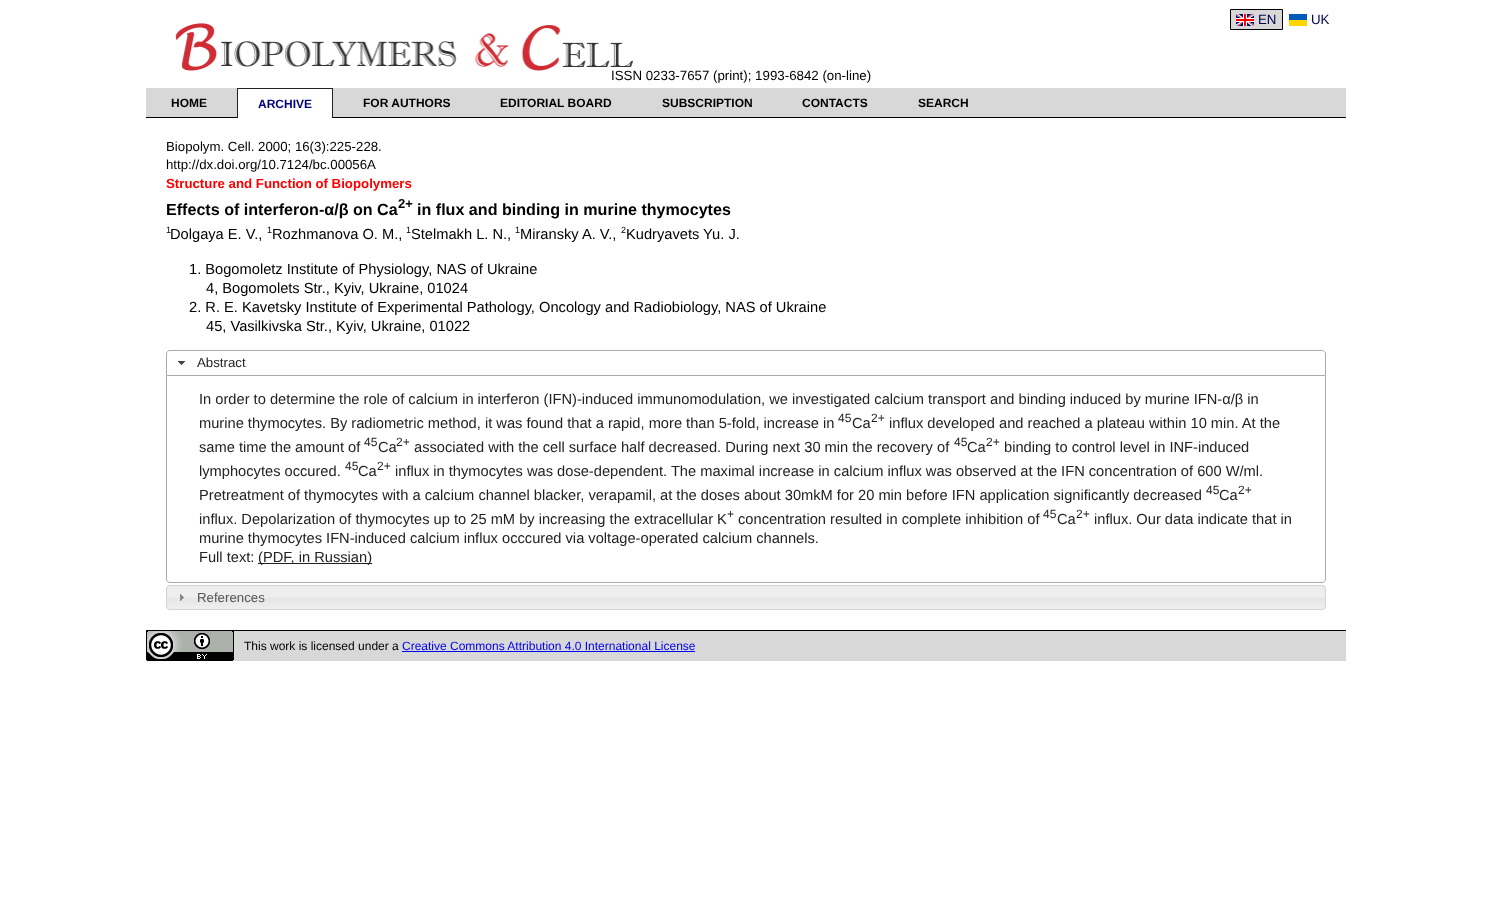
<svg xmlns="http://www.w3.org/2000/svg" width="1491" height="924">
<style>
.a{font:13.3px Liberation Sans;fill:#00004f}
.b{font:13.3px Liberation Sans;fill:#000}
.c{font:bold 12px Liberation Sans;fill:#000}
.d{font:bold 12px Liberation Sans;fill:#00007f}
.e{font:13.25px Liberation Sans;fill:#000}
.f{font:bold 13.25px Liberation Sans;fill:#f00}
.g{font:bold 16.1px Liberation Sans;fill:#000}
.h{font:bold 13px Liberation Sans;fill:#000}
.i{font:9px Liberation Sans;fill:#000}
.j{font:14.67px Liberation Sans;fill:#000}
.k{font:13.25px Liberation Sans;fill:#222}
.l{font:14.67px Liberation Sans;fill:#222}
.m{font:12px Liberation Sans;fill:#222}
.n{font:13.25px Liberation Sans;fill:#555}
.o{font:12px Liberation Sans;fill:#000}
.p{font:12px Liberation Sans;fill:#00e}
</style>
<rect width="100%" height="100%" fill="#fff"/>
<image href="1.png" x="175" y="23" width="459" height="48"/>
<path fill="#d8d8d8" stroke="#000" d="M1230.5 9.5h52v20H1230.5z"/>
<image href="2.png" x="1236" y="14" width="18" height="12"/>
<image href="3.png" x="1289" y="14" width="18" height="12"/>
<path fill="#d8d8d8" d="M146 88h1200v29H146z"/>
<path fill="#000" d="M146 117h1200v1H146z"/>
<path fill="#fff" d="M238 89h94v29H238z"/>
<path fill="#222" d="M237 88h96v1H237z"/>
<path fill="#222" d="M332 88h1v30H332z"/>
<path fill="#222" d="M237 88h1v30H237z"/>
<path fill="none" stroke="#aaa" d="M170 350.5h1152c2 0 3.5 1.5 3.5 3.5v21.5h-1159v-21.5c0-2 1.5-3.5 3.5-3.5z"/>
<image href="4.png" x="178" y="361" width="7" height="4"/>
<path fill="#aaa" fill-rule="evenodd" d="M166 376h1160v203c0 2-2 4-4 4h-1152c-2 0-4-2-4-4zm1 0h1158v203c0 2-1 3-3 3h-1152c-2 0-3-1-3-3z"/>
<path fill="#222" d="M258 563h114v1H258z"/>
<image href="5.png" x="166" y="585" width="1160" height="25"/>
<rect fill="none" stroke="#d3d3d3" x="166.5" y="585.5" width="1159" height="24" rx="3.5"/>
<image href="6.png" x="180" y="594" width="4" height="7"/>
<path fill="#d8d8d8" d="M146 631h1200v30H146z"/>
<path fill="#000" d="M146 630h1200v1H146z"/>
<image href="7.png" x="146" y="630" width="88" height="31"/>
<path fill="#00e" d="M402 651h293v1H402z"/>
<text class="a" x="1258" y="24">EN</text>
<text class="a" x="1311" y="24">UK</text>
<text class="b" x="611" y="80">ISSN 0233-7657 (print); 1993-6842 (on-line)</text>
<text class="c" x="171" y="107">HOME</text>
<text class="d" x="258" y="108">ARCHIVE</text>
<text class="c" x="363" y="107">FOR AUTHORS</text>
<text class="c" x="500" y="107">EDITORIAL BOARD</text>
<text class="c" x="662" y="107">SUBSCRIPTION</text>
<text class="c" x="802" y="107">CONTACTS</text>
<text class="c" x="918" y="107">SEARCH</text>
<text class="e" x="166" y="151">Biopolym. Cell. 2000; 16(3):225-228.</text>
<text class="e" x="166" y="169">http://dx.doi.org/10.7124/bc.00056A</text>
<text class="f" x="166" y="188">Structure and Function of Biopolymers</text>
<text class="g" x="166" y="215">Effects of interferon-α/β on Ca</text>
<text class="h" x="398" y="208">2+</text>
<text class="g" x="417" y="215">in flux and binding in murine thymocytes</text>
<text class="i" x="166" y="233">1</text>
<text class="j" x="170" y="239">Dolgaya E. V.,</text>
<text class="i" x="267" y="233">1</text>
<text class="j" x="272" y="239">Rozhmanova O. M.,</text>
<text class="i" x="406" y="233">1</text>
<text class="j" x="411" y="239">Stelmakh L. N.,</text>
<text class="i" x="515" y="233">1</text>
<text class="j" x="520" y="239">Miransky A. V.,</text>
<text class="i" x="621" y="233">2</text>
<text class="j" x="626" y="239">Kudryavets Yu. J.</text>
<text class="j" x="189" y="274">1. Bogomoletz Institute of Physiology, NAS of Ukraine</text>
<text class="j" x="206" y="293">4, Bogomolets Str., Kyiv, Ukraine, 01024</text>
<text class="j" x="189" y="312">2. R. E. Kavetsky Institute of Experimental Pathology, Oncology and Radiobiology, NAS of Ukraine</text>
<text class="j" x="206" y="331">45, Vasilkivska Str., Kyiv, Ukraine, 01022</text>
<text class="k" x="197" y="367">Abstract</text>
<text class="l" x="199" y="404">In order to determine the role of calcium in interferon (IFN)-induced immunomodulation, we investigated calcium transport and binding induced by murine IFN-α/β in</text>
<text class="l" x="199" y="428">murine thymocytes. By radiometric method, it was found that a rapid, more than 5-fold, increase in</text>
<text class="m" x="838" y="422">45</text>
<text class="l" x="852" y="428">Ca</text>
<text class="m" x="871" y="422">2+</text>
<text class="l" x="889" y="428">influx developed and reached a plateau within 10 min. At the</text>
<text class="l" x="199" y="452">same time the amount of</text>
<text class="m" x="364" y="446">45</text>
<text class="l" x="378" y="452">Ca</text>
<text class="m" x="396" y="446">2+</text>
<text class="l" x="414" y="452">associated with the cell surface half decreased. During next 30 min the recovery of</text>
<text class="m" x="954" y="446">45</text>
<text class="l" x="967" y="452">Ca</text>
<text class="m" x="986" y="446">2+</text>
<text class="l" x="1004" y="452">binding to control level in INF-induced</text>
<text class="l" x="199" y="476">lymphocytes occured.</text>
<text class="m" x="345" y="470">45</text>
<text class="l" x="358" y="476">Ca</text>
<text class="m" x="377" y="470">2+</text>
<text class="l" x="395" y="476">influx in thymocytes was dose-dependent. The maximal increase in calcium influx was observed at the IFN concentration of 600 W/ml.</text>
<text class="l" x="199" y="500">Pretreatment of thymocytes with a calcium channel blacker, verapamil, at the doses about 30mkM for 20 min before IFN application significantly decreased</text>
<text class="m" x="1206" y="494">45</text>
<text class="l" x="1219" y="500">Ca</text>
<text class="m" x="1238" y="494">2+</text>
<text class="l" x="199" y="524">influx. Depolarization of thymocytes up to 25 mM by increasing the extracellular K</text>
<text class="m" x="727" y="518">+</text>
<text class="l" x="738" y="524">concentration resulted in complete inhibition of</text>
<text class="m" x="1043" y="518">45</text>
<text class="l" x="1057" y="524">Ca</text>
<text class="m" x="1076" y="518">2+</text>
<text class="l" x="1094" y="524">influx. Our data indicate that in</text>
<text class="l" x="199" y="543">murine thymocytes IFN-induced calcium influx occcured via voltage-operated calcium channels.</text>
<text class="l" x="199" y="562">Full text:</text>
<text class="l" x="258" y="562">(PDF, in Russian)</text>
<text class="n" x="197" y="602">References</text>
<text class="o" x="244" y="650">This work is licensed under a</text>
<text class="p" x="402" y="650">Creative Commons Attribution 4.0 International License</text>
</svg>
